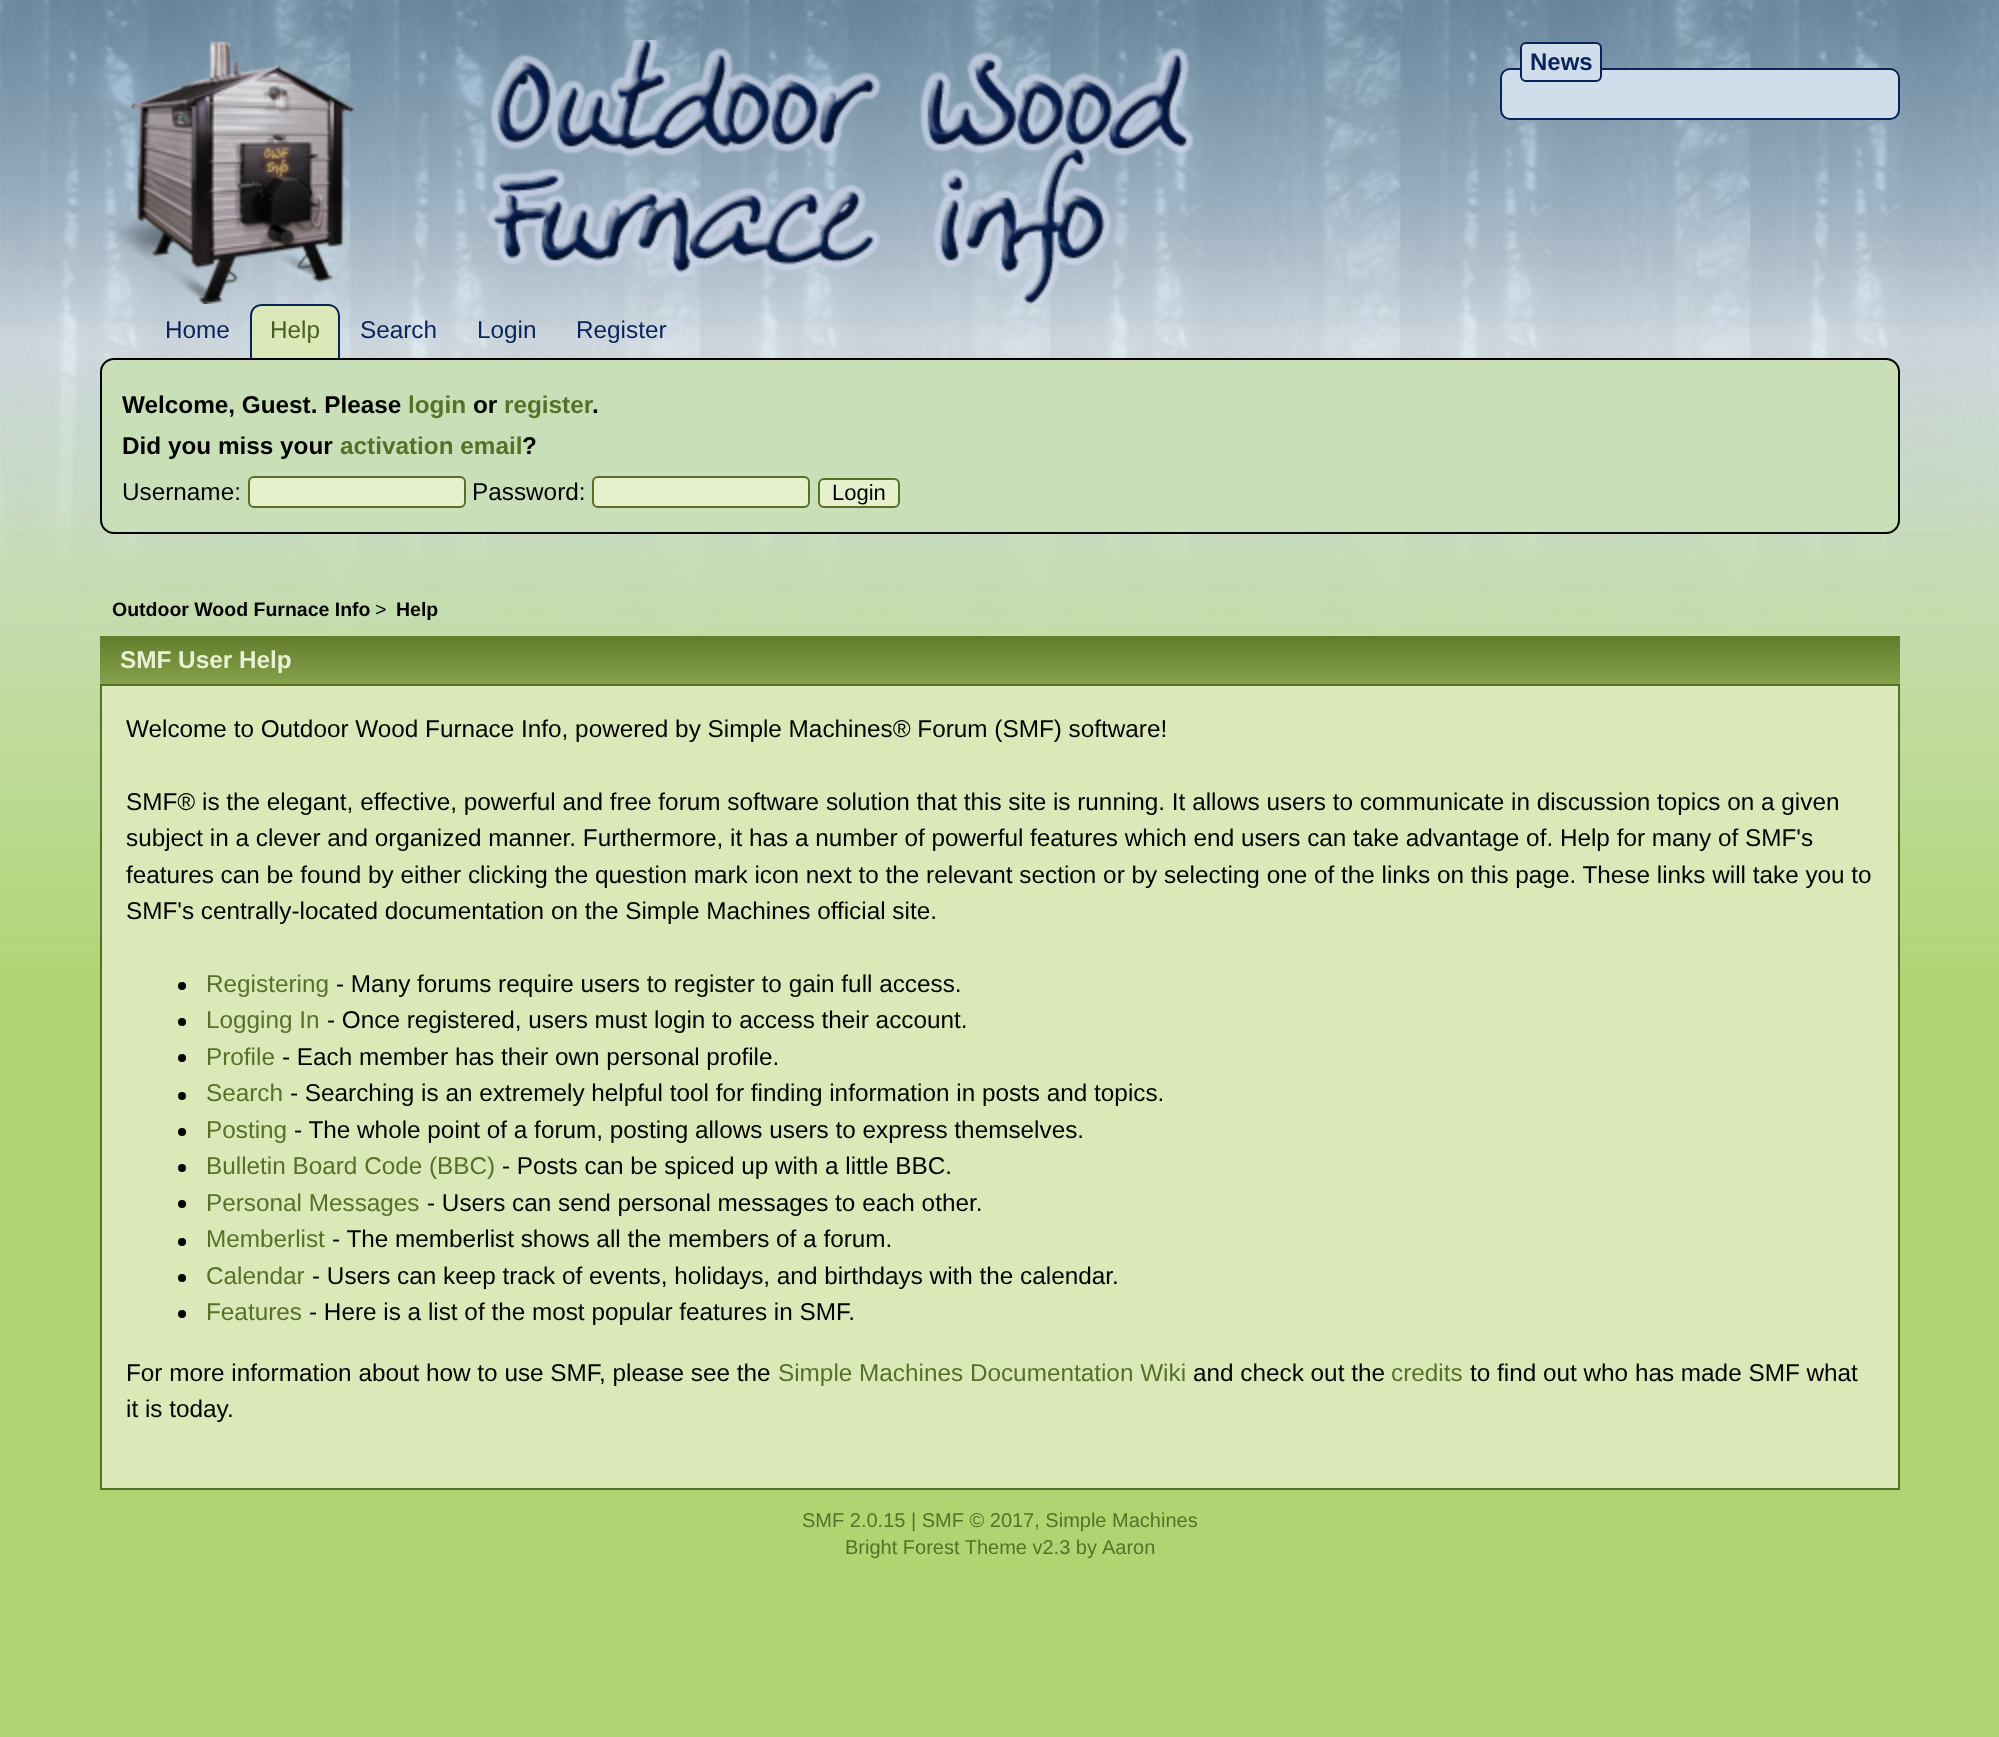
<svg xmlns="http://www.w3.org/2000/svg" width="1999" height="1737">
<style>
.a{font:bold 24px Liberation Sans;fill:#07235a}
.b{font:24.32px Liberation Sans;fill:#07235a}
.c{font:24.32px Liberation Sans;fill:#495e20}
.d{font:bold 24.32px Liberation Sans;fill:#000}
.e{font:bold 24.32px Liberation Sans;fill:#577028}
.f{font:24.32px Liberation Sans;fill:#000}
.g{font:22px Liberation Sans;fill:#000}
.h{font:bold 19.5px Liberation Sans;fill:#000}
.i{font:19.5px Liberation Sans;fill:#000}
.j{font:bold 24.32px Liberation Sans;fill:#e9f1d5}
.k{font:24.32px Liberation Sans;fill:#577028}
.l{font:20px Liberation Sans;fill:#577028}
</style>
<rect width="100%" height="100%" fill="#afd572"/>
<image href="1.png" x="0" y="0" width="1999" height="968"/>
<image href="2.png" x="113" y="40" width="1082" height="264"/>
<rect fill="#d0deeb" stroke="#07235a" stroke-width="2" x="1501" y="69" width="398" height="50" rx="9"/>
<rect fill="#d0deeb" stroke="#07235a" stroke-width="2" x="1521" y="43" width="80" height="38" rx="5"/>
<path fill="#dbe8b8" d="M262 304h66c6.5 0 12 5.5 12 12v44h-90v-44c0-6.5 5.5-12 12-12z"/>
<path fill="#07235a" fill-rule="evenodd" d="M262 304h66c7 0 12 5 12 12v44h-90v-44c0-7 5-12 12-12zm0 2h66c6 0 10 4 10 10v44h-86v-44c0-6 4-10 10-10z"/>
<rect fill="#c9dfb8" stroke="#000" stroke-width="2" x="101" y="359" width="1798" height="174" rx="13"/>
<rect fill="#e6f0cc" stroke="#577028" stroke-width="2" x="249" y="477" width="216" height="30" rx="5"/>
<rect fill="#e6f0cc" stroke="#577028" stroke-width="2" x="593" y="477" width="216" height="30" rx="5"/>
<rect fill="#e6f0cc" stroke="#577028" stroke-width="2" x="819" y="479" width="80" height="28" rx="5"/>
<image href="3.png" x="100" y="636" width="1800" height="48"/>
<path fill="#dbe8b8" stroke="#577028" stroke-width="2" d="M101 685h1798v804H101z"/>
<circle fill="#000" cx="182" cy="986" r="4"/>
<circle fill="#000" cx="182" cy="1022" r="4"/>
<circle fill="#000" cx="182" cy="1058" r="4"/>
<circle fill="#000" cx="182" cy="1096" r="4"/>
<circle fill="#000" cx="182" cy="1132" r="4"/>
<circle fill="#000" cx="182" cy="1168" r="4"/>
<circle fill="#000" cx="182" cy="1204" r="4"/>
<circle fill="#000" cx="182" cy="1242" r="4"/>
<circle fill="#000" cx="182" cy="1278" r="4"/>
<circle fill="#000" cx="182" cy="1314" r="4"/>
<text class="a" x="1530" y="70">News</text>
<text class="b" x="165" y="338">Home</text>
<text class="c" x="270" y="338">Help</text>
<text class="b" x="360" y="338">Search</text>
<text class="b" x="477" y="338">Login</text>
<text class="b" x="576" y="338">Register</text>
<text class="d" x="122" y="413">Welcome, Guest. Please</text>
<text class="e" x="408" y="413">login</text>
<text class="d" x="473" y="413">or</text>
<text class="e" x="504" y="413">register</text>
<text class="d" x="592" y="413">.</text>
<text class="d" x="122" y="454">Did you miss your</text>
<text class="e" x="340" y="454">activation email</text>
<text class="d" x="522" y="454">?</text>
<text class="f" x="122" y="500">Username:</text>
<text class="f" x="472" y="500">Password:</text>
<text class="g" x="832" y="500">Login</text>
<text class="h" x="112" y="616">Outdoor Wood Furnace Info</text>
<text class="i" x="375" y="616">&gt;</text>
<text class="h" x="396" y="616">Help</text>
<text class="j" x="120" y="668">SMF User Help</text>
<text class="f" x="126" y="737">Welcome to Outdoor Wood Furnace Info, powered by Simple Machines® Forum (SMF) software!</text>
<text class="f" x="126" y="810">SMF® is the elegant, effective, powerful and free forum software solution that this site is running. It allows users to communicate in discussion topics on a given</text>
<text class="f" x="126" y="846">subject in a clever and organized manner. Furthermore, it has a number of powerful features which end users can take advantage of. Help for many of SMF's</text>
<text class="f" x="126" y="883">features can be found by either clicking the question mark icon next to the relevant section or by selecting one of the links on this page. These links will take you to</text>
<text class="f" x="126" y="919">SMF's centrally-located documentation on the Simple Machines official site.</text>
<text class="k" x="206" y="992">Registering</text>
<text class="f" x="336" y="992">- Many forums require users to register to gain full access.</text>
<text class="k" x="206" y="1028">Logging In</text>
<text class="f" x="327" y="1028">- Once registered, users must login to access their account.</text>
<text class="k" x="206" y="1065">Profile</text>
<text class="f" x="282" y="1065">- Each member has their own personal profile.</text>
<text class="k" x="206" y="1101">Search</text>
<text class="f" x="290" y="1101">- Searching is an extremely helpful tool for finding information in posts and topics.</text>
<text class="k" x="206" y="1138">Posting</text>
<text class="f" x="294" y="1138">- The whole point of a forum, posting allows users to express themselves.</text>
<text class="k" x="206" y="1174">Bulletin Board Code (BBC)</text>
<text class="f" x="502" y="1174">- Posts can be spiced up with a little BBC.</text>
<text class="k" x="206" y="1211">Personal Messages</text>
<text class="f" x="427" y="1211">- Users can send personal messages to each other.</text>
<text class="k" x="206" y="1247">Memberlist</text>
<text class="f" x="332" y="1247">- The memberlist shows all the members of a forum.</text>
<text class="k" x="206" y="1284">Calendar</text>
<text class="f" x="312" y="1284">- Users can keep track of events, holidays, and birthdays with the calendar.</text>
<text class="k" x="206" y="1320">Features</text>
<text class="f" x="309" y="1320">- Here is a list of the most popular features in SMF.</text>
<text class="f" x="126" y="1381">For more information about how to use SMF, please see the</text>
<text class="k" x="778" y="1381">Simple Machines Documentation Wiki</text>
<text class="f" x="1193" y="1381">and check out the</text>
<text class="k" x="1391" y="1381">credits</text>
<text class="f" x="1470" y="1381">to find out who has made SMF what</text>
<text class="f" x="126" y="1417">it is today.</text>
<text class="l" x="802" y="1527">SMF 2.0.15 | SMF © 2017, Simple Machines</text>
<text class="l" x="845" y="1554">Bright Forest Theme v2.3 by</text>
<text class="l" x="1102" y="1554">Aaron</text>
</svg>
